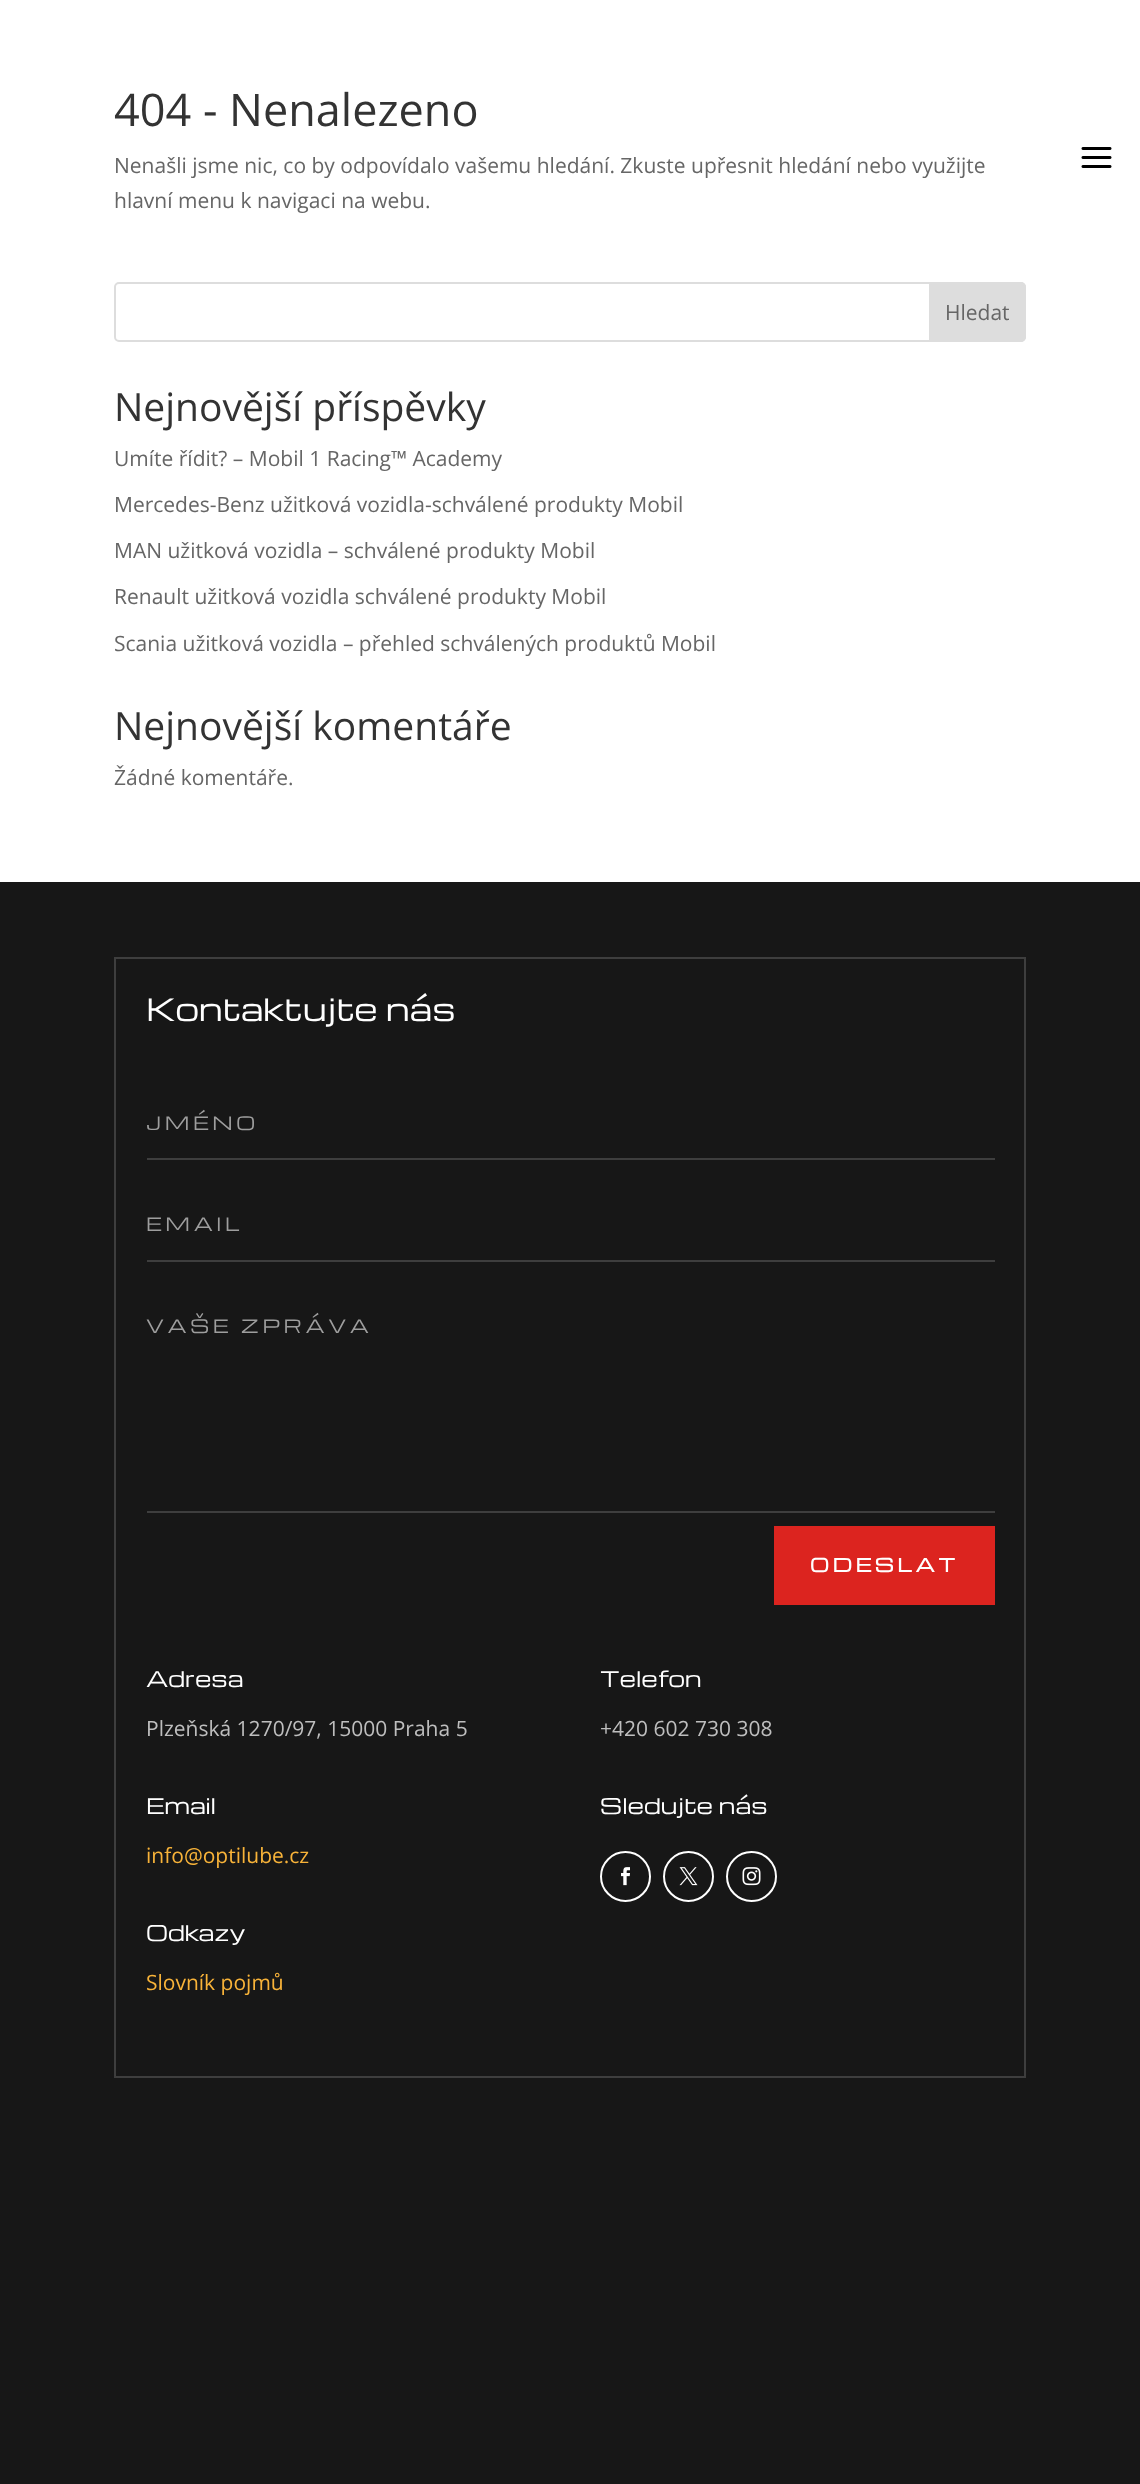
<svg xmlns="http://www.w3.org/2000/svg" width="1140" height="2484">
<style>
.a{font:45px Open Sans;fill:#333}
.b{font:21px Open Sans;fill:#666}
.c{font:39px Open Sans;fill:#333}
.d{font:30px Michroma;fill:#fff}
.e{font:18px Michroma;letter-spacing:3.6px;fill:#9e9e9e}
.f{font:bold 18px Michroma;letter-spacing:3.6px;fill:#fff}
.g{font:21px Michroma;fill:#fff}
.h{font:21px Open Sans;fill:#bebebe}
.i{font:21px Open Sans;fill:#f8b339}
</style>
<rect width="100%" height="100%" fill="#171717"/>
<path fill="#fff" d="M0 0h1140v882H0z"/>
<rect fill="none" stroke="#ddd" stroke-width="2" x="115" y="283" width="910" height="58" rx="4"/>
<path fill="#ddd" stroke="#ddd" stroke-width="2" d="M930 283h91c2 0 4 2 4 4v50c0 2-2 4-4 4h-91z"/>
<path fill="none" stroke="#3e3e3e" stroke-width="2" d="M115 958h910v1119H115z"/>
<path fill="#3e3e3e" d="M147 1158h848v2H147z"/>
<path fill="#3e3e3e" d="M147 1260h848v2H147z"/>
<path fill="#3e3e3e" d="M147 1511h848v2H147z"/>
<path fill="#dc241f" d="M774 1526h221v79H774z"/>
<circle fill="none" stroke="#fff" stroke-width="2" cx="625.5" cy="1876.5" r="24.5"/>
<image href="1.png" x="621" y="1867" width="9" height="19"/>
<circle fill="none" stroke="#fff" stroke-width="2" cx="688.5" cy="1876.5" r="24.5"/>
<image href="2.png" x="679" y="1867" width="19" height="19"/>
<circle fill="none" stroke="#fff" stroke-width="2" cx="751.5" cy="1876.5" r="24.5"/>
<image href="3.png" x="742" y="1867" width="19" height="19"/>
<image href="4.png" x="1081" y="147" width="31" height="21"/>
<text class="a" x="114" y="126">404 - Nenalezeno</text>
<text class="b" x="114" y="173">Nenašli jsme nic, co by odpovídalo vašemu hledání. Zkuste upřesnit hledání nebo využijte</text>
<text class="b" x="114" y="208">hlavní menu k navigaci na webu.</text>
<text class="b" x="945" y="320">Hledat</text>
<text class="c" x="114" y="421">Nejnovější příspěvky</text>
<text class="b" x="114" y="466">Umíte řídit? – Mobil 1 Racing™ Academy</text>
<text class="b" x="114" y="512">Mercedes-Benz užitková vozidla-schválené produkty Mobil</text>
<text class="b" x="114" y="558">MAN užitková vozidla – schválené produkty Mobil</text>
<text class="b" x="114" y="604">Renault užitková vozidla schválené produkty Mobil</text>
<text class="b" x="114" y="651">Scania užitková vozidla – přehled schválených produktů Mobil</text>
<text class="c" x="114" y="740">Nejnovější komentáře</text>
<text class="b" x="114" y="785">Žádné komentáře.</text>
<text class="d" x="146" y="1021">Kontaktujte nás</text>
<text class="e" x="146" y="1130">JMÉNO</text>
<text class="e" x="146" y="1231">EMAIL</text>
<text class="e" x="146" y="1333">VAŠE ZPRÁVA</text>
<text class="f" x="810" y="1572">ODESLAT</text>
<text class="g" x="146" y="1687">Adresa</text>
<text class="h" x="146" y="1736">Plzeňská 1270/97, 15000 Praha 5</text>
<text class="g" x="146" y="1814">Email</text>
<text class="i" x="146" y="1863">info@optilube.cz</text>
<text class="g" x="146" y="1941">Odkazy</text>
<text class="i" x="146" y="1990">Slovník pojmů</text>
<text class="g" x="600" y="1687">Telefon</text>
<text class="h" x="600" y="1736">+420 602 730 308</text>
<text class="g" x="600" y="1814">Sledujte nás</text>
</svg>
